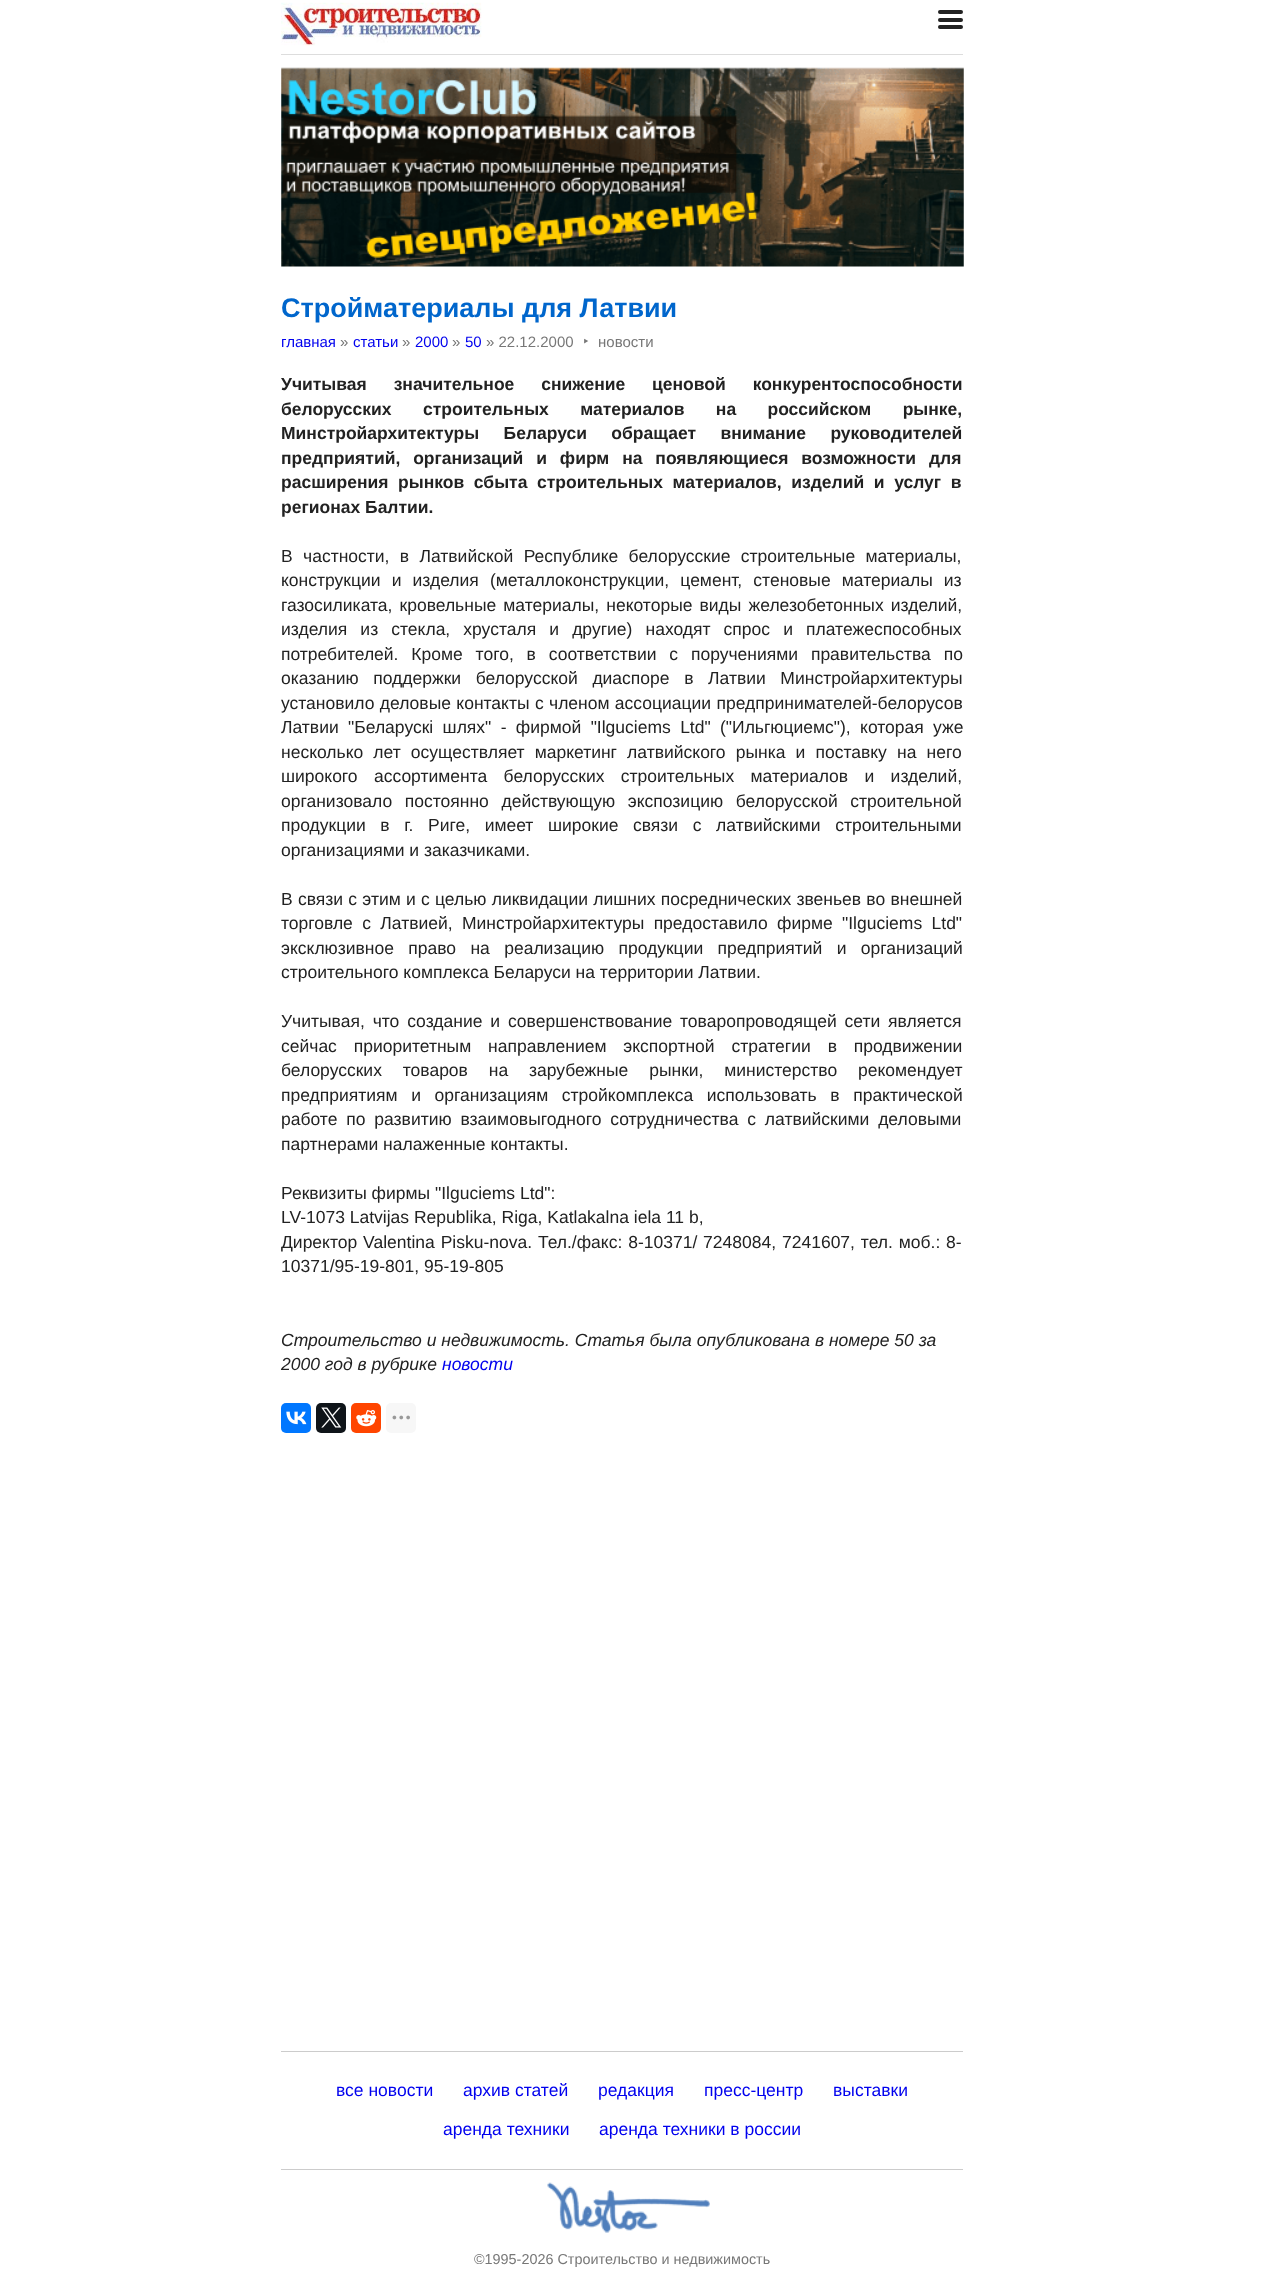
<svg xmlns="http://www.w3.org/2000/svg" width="1262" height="2288">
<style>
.a{font:bold 27px Liberation Sans;fill:#06c}
.b{font:15px Liberation Sans;fill:#00e}
.c{font:15px Liberation Sans;fill:#777}
.d{font:16px Noto Sans;fill:#777}
.e{font:bold 17.5px Liberation Sans;fill:#222}
.f{font:17.5px Liberation Sans;fill:#222}
.g{font:italic 17.5px Liberation Sans;fill:#222}
.h{font:italic 17.5px Liberation Sans;fill:#00e}
.i{font:17.5px Liberation Sans;fill:#00e}
.j{font:14.4px Liberation Sans;fill:#777}
</style>
<rect width="100%" height="100%" fill="#fff"/>
<path fill="#ddd" d="M281 54h682v1H281z"/>
<image href="1.png" x="281" y="2" width="201" height="44"/>
<rect fill="#222" x="938" y="10" width="25" height="4" rx="2"/>
<rect fill="#222" x="938" y="18" width="25" height="4" rx="2"/>
<rect fill="#222" x="938" y="25" width="25" height="4" rx="2"/>
<image href="2.png" x="281" y="67" width="683" height="200"/>
<rect fill="#07f" x="281" y="1403" width="30" height="30" rx="5"/>
<image href="3.png" x="286" y="1411" width="21" height="14"/>
<rect fill="#0f1419" x="316" y="1403" width="30" height="30" rx="5"/>
<image href="4.png" x="321" y="1407" width="21" height="21"/>
<rect fill="#ff4500" x="351" y="1403" width="30" height="30" rx="5"/>
<image href="5.png" x="356" y="1410" width="21" height="17"/>
<rect fill="#f7f7f7" x="386" y="1403" width="30" height="30" rx="5"/>
<image href="6.png" x="392" y="1415" width="18" height="5"/>
<path fill="#ccc" d="M281 2051h682v1H281z"/>
<path fill="#ccc" d="M281 2169h682v1H281z"/>
<image href="7.png" x="547" y="2182" width="163" height="51"/>
<text class="a" x="281" y="317">Стройматериалы для Латвии</text>
<text class="b" x="281" y="347">главная</text>
<text class="c" x="340" y="347">»</text>
<text class="b" x="353" y="347">статьи</text>
<text class="c" x="402" y="347">»</text>
<text class="b" x="415" y="347">2000</text>
<text class="c" x="452" y="347">»</text>
<text class="b" x="465" y="347">50</text>
<text class="c" x="486" y="347">» 22.12.2000</text>
<text class="d" x="583" y="347">‣</text>
<text class="c" x="598" y="347">новости</text>
<text class="e" x="281" y="390" word-spacing="22">Учитывая значительное снижение ценовой конкурентоспособности</text>
<text class="e" x="281" y="415" word-spacing="26.5">белорусских строительных материалов на российском рынке,</text>
<text class="e" x="281" y="439" word-spacing="19.5">Минстройархитектуры Беларуси обращает внимание руководителей</text>
<text class="e" x="281" y="464" word-spacing="8">предприятий, организаций и фирм на появляющиеся возможности для</text>
<text class="e" x="281" y="488" word-spacing="4.75">расширения рынков сбыта строительных материалов, изделий и услуг в</text>
<text class="e" x="281" y="513">регионах Балтии.</text>
<text class="f" x="281" y="562" word-spacing="5.5">В частности, в Латвийской Республике белорусские строительные материалы,</text>
<text class="f" x="281" y="586" word-spacing="6.25">конструкции и изделия (металлоконструкции, цемент, стеновые материалы из</text>
<text class="f" x="281" y="611" word-spacing="2.25">газосиликата, кровельные материалы, некоторые виды железобетонных изделий,</text>
<text class="f" x="281" y="635" word-spacing="8.25">изделия из стекла, хрусталя и другие) находят спрос и платежеспособных</text>
<text class="f" x="281" y="660" word-spacing="8">потребителей. Кроме того, в соответствии с поручениями правительства по</text>
<text class="f" x="281" y="684" word-spacing="9.75">оказанию поддержки белорусской диаспоре в Латвии Минстройархитектуры</text>
<text class="f" x="281" y="709" word-spacing="0.5">установило деловые контакты с членом ассоциации предпринимателей-белорусов</text>
<text class="f" x="281" y="733" word-spacing="4.5">Латвии "Беларускi шлях" - фирмой "Ilguciems Ltd" ("Ильгюциемс"), которая уже</text>
<text class="f" x="281" y="758" word-spacing="5.25">несколько лет осуществляет маркетинг латвийского рынка и поставку на него</text>
<text class="f" x="281" y="782" word-spacing="11.5">широкого ассортимента белорусских строительных материалов и изделий,</text>
<text class="f" x="281" y="807" word-spacing="7.75">организовало постоянно действующую экспозицию белорусской строительной</text>
<text class="f" x="281" y="831" word-spacing="9.75">продукции в г. Риге, имеет широкие связи с латвийскими строительными</text>
<text class="f" x="281" y="856">организациями и заказчиками.</text>
<text class="f" x="281" y="905" word-spacing="0.4">В связи с этим и с целью ликвидации лишних посреднических звеньев во внешней</text>
<text class="f" x="281" y="929" word-spacing="4.5">торговле с Латвией, Минстройархитектуры предоставило фирме "Ilguciems Ltd"</text>
<text class="f" x="281" y="954" word-spacing="9.5">эксклюзивное право на реализацию продукции предприятий и организаций</text>
<text class="f" x="281" y="978">строительного комплекса Беларуси на территории Латвии.</text>
<text class="f" x="281" y="1027" word-spacing="3">Учитывая, что создание и совершенствование товаропроводящей сети является</text>
<text class="f" x="281" y="1052" word-spacing="12">сейчас приоритетным направлением экспортной стратегии в продвижении</text>
<text class="f" x="281" y="1076" word-spacing="16">белорусских товаров на зарубежные рынки, министерство рекомендует</text>
<text class="f" x="281" y="1101" word-spacing="8.75">предприятиям и организациям стройкомплекса использовать в практической</text>
<text class="f" x="281" y="1125" word-spacing="4">работе по развитию взаимовыгодного сотрудничества с латвийскими деловыми</text>
<text class="f" x="281" y="1150">партнерами налаженные контакты.</text>
<text class="f" x="281" y="1199">Реквизиты фирмы "Ilguciems Ltd":</text>
<text class="f" x="281" y="1223">LV-1073 Latvijas Republika, Riga, Katlakalna iela 11 b,</text>
<text class="f" x="281" y="1248" word-spacing="1">Директор Valentina Pisku-nova. Тел./факс: 8-10371/ 7248084, 7241607, тел. моб.: 8-</text>
<text class="f" x="281" y="1272">10371/95-19-801, 95-19-805</text>
<text class="g" x="281" y="1346">Строительство и недвижимость. Статья была опубликована в номере 50 за</text>
<text class="g" x="281" y="1370">2000 год в рубрике</text>
<text class="h" x="442" y="1370">новости</text>
<text class="i" x="336" y="2096">все новости</text>
<text class="i" x="463" y="2096">архив статей</text>
<text class="i" x="598" y="2096">редакция</text>
<text class="i" x="704" y="2096">пресс-центр</text>
<text class="i" x="833" y="2096">выставки</text>
<text class="i" x="443" y="2135">аренда техники</text>
<text class="i" x="599" y="2135">аренда техники в россии</text>
<text class="j" x="474" y="2264">©1995-2026 Строительство и недвижимость</text>
</svg>
